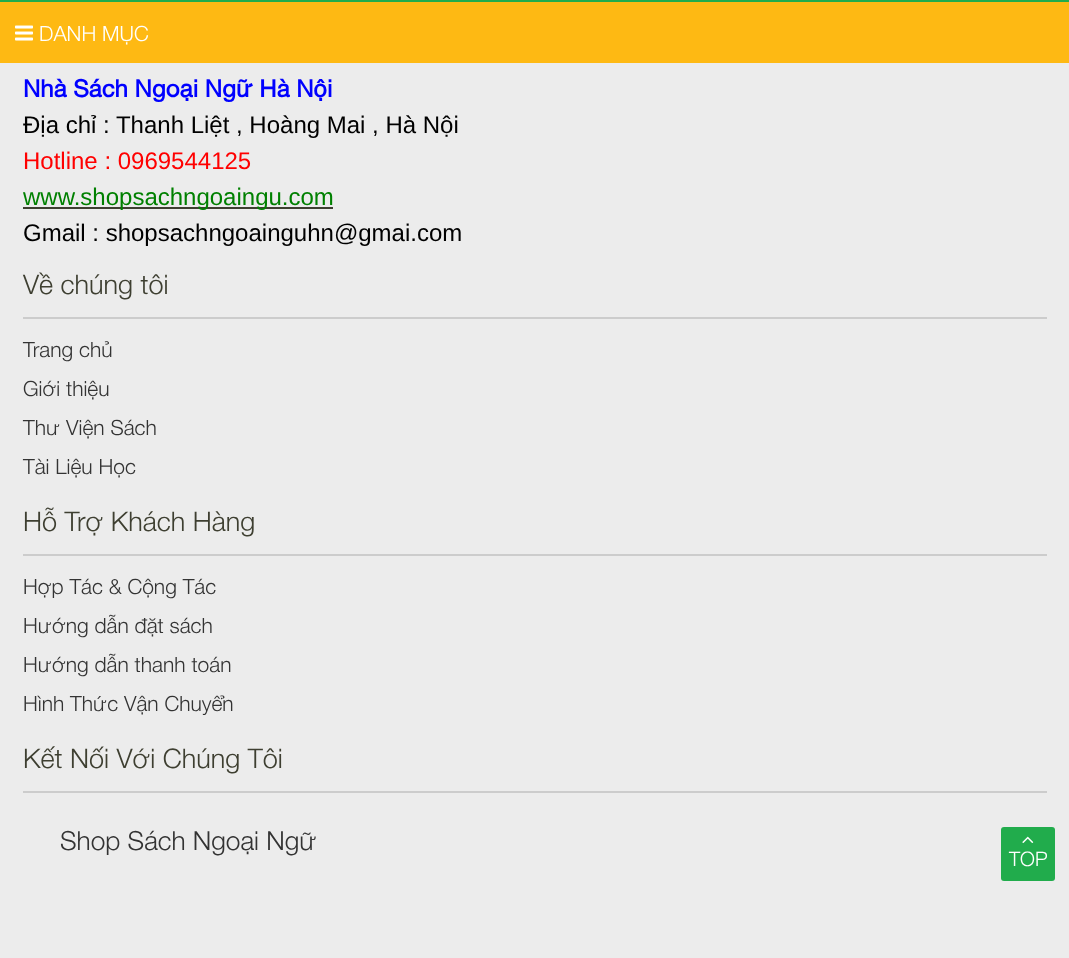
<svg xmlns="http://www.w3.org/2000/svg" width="1069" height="958">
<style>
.a{font:300 21px Helvetica Neue;fill:#fff}
.b{font:bold 24px Helvetica Neue;fill:#00f}
.c{font:24px Liberation Sans;fill:#000}
.d{font:24px Liberation Sans;fill:#f00}
.e{font:24px Liberation Sans;fill:#008000}
.f{font:300 27px Helvetica Neue;fill:#3e3f31}
.g{font:300 21px Helvetica Neue;fill:#333}
.h{font:300 26.25px Helvetica Neue;fill:#333}
.i{font:300 20px Helvetica Neue;fill:#fff}
</style>
<defs>
<clipPath id="clip1"><path d="M23 0h1024v906H23z"/></clipPath>
</defs>
<rect width="100%" height="100%" fill="#ececec"/>
<path fill="#21ac4c" d="M0 0h1069v2H0z"/>
<path fill="#feb913" d="M0 2h1069v61H0z"/>
<image href="1.png" x="15" y="25" width="18" height="16"/>
<path fill="#3e3f31" d="M23 207h310v2H23z"/>
<path fill="#ccc" d="M23 317h1024v2H23z"/>
<path fill="#ccc" d="M23 554h1024v2H23z"/>
<path fill="#ccc" d="M23 791h1024v2H23z"/>
<rect fill="#21ac4c" x="1001" y="827" width="54" height="54" rx="3"/>
<image href="2.png" x="1022" y="836" width="12" height="7"/>
<text class="a" x="39" y="41">DANH MỤC</text>
<text class="b" x="23" y="97">Nhà Sách Ngoại Ngữ Hà Nội</text>
<g clip-path="url(#clip1)">
<text class="c" x="23" y="133">Địa chỉ : Thanh Liệt , Hoàng Mai , Hà Nội</text>
</g>
<text class="d" x="23" y="169">Hotline : 0969544125</text>
<text class="e" x="23" y="205">www.shopsachngoaingu.com</text>
<text class="c" x="23" y="241">Gmail : shopsachngoainguhn@gmai.com</text>
<text class="f" x="23" y="294">Về chúng tôi</text>
<text class="g" x="23" y="357">Trang chủ</text>
<text class="g" x="23" y="396">Giới thiệu</text>
<text class="g" x="23" y="435">Thư Viện Sách</text>
<text class="g" x="23" y="474">Tài Liệu Học</text>
<text class="f" x="23" y="531">Hỗ Trợ Khách Hàng</text>
<text class="g" x="23" y="594">Hợp Tác &amp; Cộng Tác</text>
<text class="g" x="23" y="633">Hướng dẫn đặt sách</text>
<text class="g" x="23" y="672">Hướng dẫn thanh toán</text>
<text class="g" x="23" y="711">Hình Thức Vận Chuyển</text>
<text class="f" x="23" y="768">Kết Nối Với Chúng Tôi</text>
<text class="h" x="60" y="850">Shop Sách Ngoại Ngữ</text>
<text class="i" x="1009" y="866">TOP</text>
</svg>
